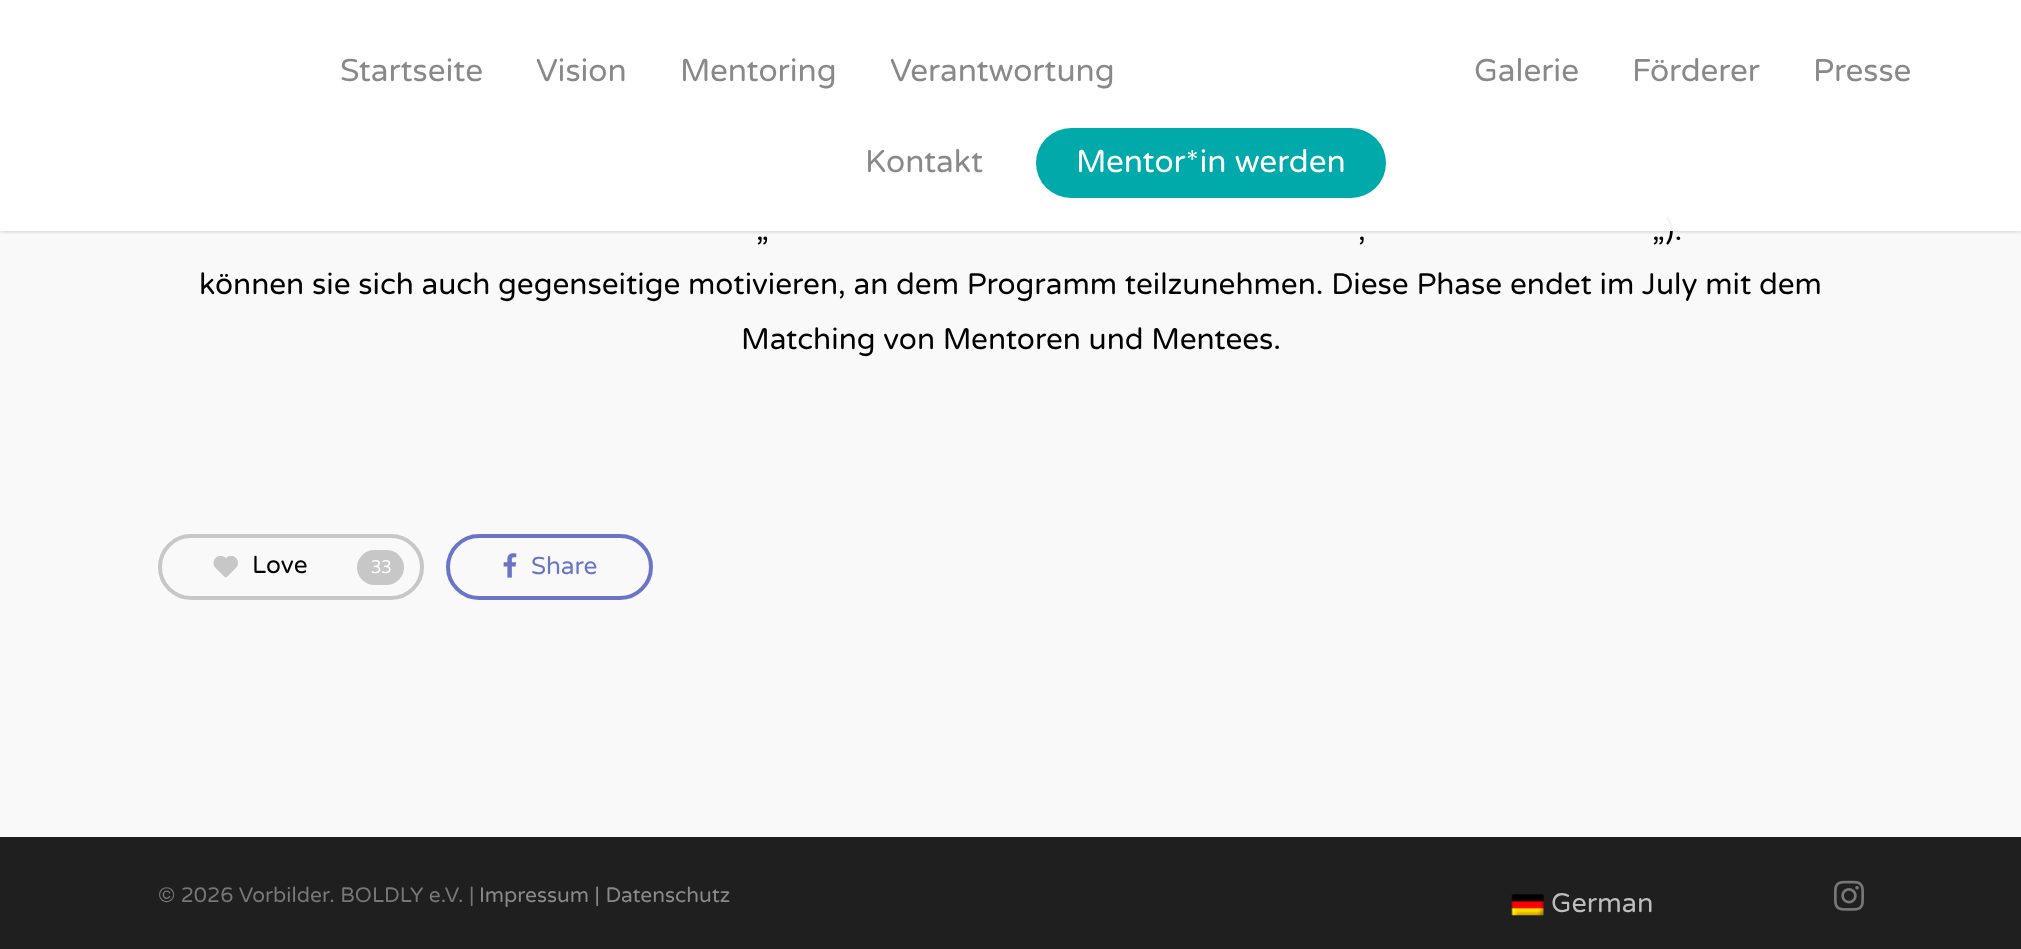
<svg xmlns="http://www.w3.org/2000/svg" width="2021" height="949">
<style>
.a{font:29.75px Varela Round;fill:#000}
.b{font:31.5px Varela Round;fill:#fff}
.c{font:31.5px Varela Round;fill:#898989}
.d{font:24.5px Varela Round;fill:#000}
.e{font:18px Open Sans;fill:#fff}
.f{font:24.5px Varela Round;fill:#6a75c8}
.g{font:21px Varela Round;fill:#777}
.h{font:21px Varela Round;fill:#898989}
.i{font:27px Varela Round;fill:#bdbdbd}
</style>
<defs>
<clipPath id="clip1"><path d="M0 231h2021v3H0z"/></clipPath>
</defs>
<rect width="100%" height="100%" fill="#f9f9f9"/>
<g clip-path="url(#clip1)">
<path fill="#00000038" filter="blur(2.5px)" d="M0 0h2021v231H0z"/>
</g>
<rect fill="none" stroke="#c7c7c7" stroke-width="4" x="160" y="536" width="262" height="62" rx="31"/>
<image href="1.png" x="213" y="556" width="25" height="22"/>
<rect fill="#c7c7c7" x="357" y="550" width="47" height="35" rx="17.5"/>
<rect fill="none" stroke="#6a75c8" stroke-width="4" x="448" y="536" width="203" height="62" rx="31"/>
<image href="2.png" x="503" y="553" width="14" height="25"/>
<path fill="#1f1f1f" d="M0 837h2021v112H0z"/>
<image href="3.png" x="1834" y="880" width="30" height="31"/>
<image href="4.png" x="1511" y="894" width="33" height="22"/>
<text class="a" x="756" y="240">„</text>
<text class="a" x="1358" y="240">,</text>
<text class="a" x="1652" y="240">„).</text>
<path fill="#fffffff5" d="M0 0h2021v231H0z"/>
<rect fill="#0aa" x="1036" y="128" width="350" height="70" rx="35"/>
<text class="b" x="1076" y="172">Mentor*in werden</text>
<text class="c" x="865" y="172">Kontakt</text>
<text class="c" x="1813" y="81">Presse</text>
<text class="c" x="1632" y="81">Förderer</text>
<text class="c" x="1474" y="81">Galerie</text>
<text class="c" x="890" y="81">Verantwortung</text>
<text class="c" x="680" y="81">Mentoring</text>
<text class="c" x="536" y="81">Vision</text>
<text class="c" x="340" y="81">Startseite</text>
<text class="a" x="199" y="294">können sie sich auch gegenseitige motivieren, an dem Programm teilzunehmen. Diese Phase endet im July mit dem</text>
<text class="a" x="741" y="349">Matching von Mentoren und Mentees.</text>
<text class="d" x="252" y="573">Love</text>
<text class="e" x="371" y="573">33</text>
<text class="f" x="531" y="574">Share</text>
<text class="g" x="158" y="902">© 2026 Vorbilder. BOLDLY e.V. |</text>
<text class="h" x="479" y="902">Impressum | Datenschutz</text>
<text class="i" x="1551" y="912">German</text>
</svg>
